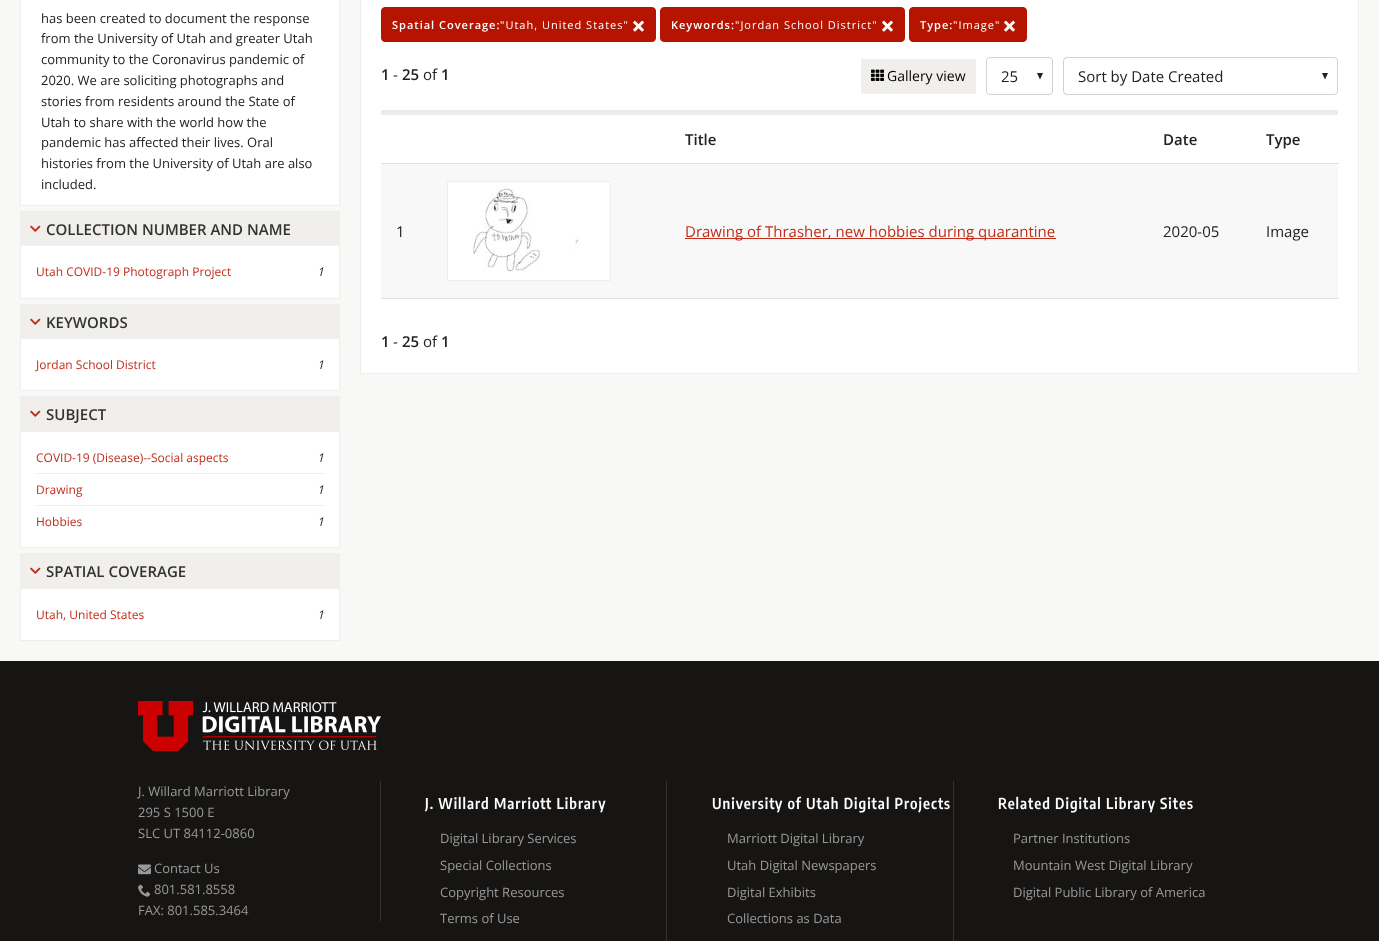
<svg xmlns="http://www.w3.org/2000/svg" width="1379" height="941">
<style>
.a{font:13px Open Sans;fill:#222}
.b{font:600 15px Open Sans;fill:#333}
.c{font:12px Open Sans;fill:#c22d19}
.d{font:italic 12px Open Sans;fill:#222}
.e{font:600 11px Open Sans;letter-spacing:1px;fill:#fff}
.f{font:11px Open Sans;letter-spacing:1px;fill:#fff}
.g{font:600 15px Open Sans;fill:#222}
.h{font:15px Open Sans;fill:#222}
.i{font:14px Open Sans;fill:#000}
.j{font:15px Open Sans;fill:#c22d19}
.k{font:13px Open Sans;fill:#999}
.l{font:600 15px Encode Sans Condensed;letter-spacing:1px;fill:#fff}
</style>
<rect width="100%" height="100%" fill="#f8f8f7"/>
<path fill="#fff" stroke="#eee" d="M20.5 -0.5h319v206H20.5z"/>
<path fill="#fff" d="M21 246h318v52H21z"/>
<path fill="none" stroke="#eee" d="M20.5 211.5h319v87H20.5z"/>
<path fill="#f0efec" d="M21 212h318v34H21z"/>
<image href="1.png" x="30" y="225" width="11" height="7"/>
<path fill="#fff" d="M21 339h318v51H21z"/>
<path fill="none" stroke="#eee" d="M20.5 304.5h319v86H20.5z"/>
<path fill="#f0efec" d="M21 305h318v34H21z"/>
<image href="1.png" x="30" y="318" width="11" height="7"/>
<path fill="#fff" d="M21 432h318v115H21z"/>
<path fill="none" stroke="#eee" d="M20.5 396.5h319v151H20.5z"/>
<path fill="#f0efec" d="M21 397h318v35H21z"/>
<image href="1.png" x="30" y="410" width="11" height="7"/>
<path fill="#eee" d="M36 473h289v1H36z"/>
<path fill="#eee" d="M36 505h289v1H36z"/>
<path fill="#fff" d="M21 589h318v51H21z"/>
<path fill="none" stroke="#eee" d="M20.5 553.5h319v87H20.5z"/>
<path fill="#f0efec" d="M21 554h318v35H21z"/>
<image href="1.png" x="30" y="567" width="11" height="7"/>
<path fill="#fff" stroke="#eee" d="M360.5 -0.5h998v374H360.5z"/>
<rect fill="#b51500" stroke="#b51500" x="381.5" y="7.5" width="274" height="34" rx="3.5"/>
<image href="2.png" x="633" y="20" width="11" height="12"/>
<rect fill="#b51500" stroke="#b51500" x="660.5" y="7.5" width="244" height="34" rx="3.5"/>
<image href="2.png" x="882" y="20" width="11" height="12"/>
<rect fill="#b51500" stroke="#b51500" x="909.5" y="7.5" width="117" height="34" rx="3.5"/>
<image href="2.png" x="1004" y="20" width="11" height="12"/>
<path fill="#edebe7" d="M381 110h957v5H381z"/>
<path fill="#f0efec" d="M861 59h115v35H861z"/>
<image href="3.png" x="871" y="69" width="13" height="12"/>
<path fill="#222" d="M1037 73l3 6.5l3-6.5"/>
<rect fill="none" stroke="#d1d1d1" x="986.5" y="57.5" width="66" height="37" rx="3.5"/>
<path fill="#222" d="M1322 73l3 6.5l3-6.5"/>
<rect fill="none" stroke="#d1d1d1" x="1063.5" y="57.5" width="274" height="37" rx="3.5"/>
<path fill="#e1e1e1" d="M381 163h958v1H381z"/>
<path fill="#f8f8f8" d="M381 164h957v134H381z"/>
<path fill="#fff" stroke="#eee" d="M447.5 181.5h163v99H447.5z"/>
<image href="4.png" x="472" y="188" width="107" height="84"/>
<path fill="#c22d19" d="M685 238h371v1H685z"/>
<path fill="#e1e1e1" d="M381 298h958v1H381z"/>
<path fill="#161514" d="M0 661h1379v280H0z"/>
<image href="5.png" x="138" y="701" width="243" height="50"/>
<path fill="#343331" d="M380 781h1v140H380z"/>
<image href="6.png" x="138" y="864" width="13" height="11"/>
<image href="7.png" x="138" y="884" width="13" height="13"/>
<path fill="#343331" d="M666 781h1v160H666z"/>
<path fill="#343331" d="M953 781h1v160H953z"/>
<text class="a" x="41" y="23">has been created to document the response</text>
<text class="a" x="41" y="43">from the University of Utah and greater Utah</text>
<text class="a" x="41" y="64">community to the Coronavirus pandemic of</text>
<text class="a" x="41" y="85">2020. We are soliciting photographs and</text>
<text class="a" x="41" y="106">stories from residents around the State of</text>
<text class="a" x="41" y="127">Utah to share with the world how the</text>
<text class="a" x="41" y="147">pandemic has affected their lives. Oral</text>
<text class="a" x="41" y="168">histories from the University of Utah are also</text>
<text class="a" x="41" y="189">included.</text>
<text class="b" x="46" y="235">COLLECTION NUMBER AND NAME</text>
<text class="c" x="36" y="276">Utah COVID-19 Photograph Project</text>
<text class="d" x="317" y="276">1</text>
<text class="b" x="46" y="328">KEYWORDS</text>
<text class="c" x="36" y="369">Jordan School District</text>
<text class="d" x="317" y="369">1</text>
<text class="b" x="46" y="420">SUBJECT</text>
<text class="c" x="36" y="462">COVID-19 (Disease)--Social aspects</text>
<text class="d" x="317" y="462">1</text>
<text class="c" x="36" y="494">Drawing</text>
<text class="d" x="317" y="494">1</text>
<text class="c" x="36" y="526">Hobbies</text>
<text class="d" x="317" y="526">1</text>
<text class="b" x="46" y="577">SPATIAL COVERAGE</text>
<text class="c" x="36" y="619">Utah, United States</text>
<text class="d" x="317" y="619">1</text>
<text class="e" x="392" y="29">Spatial Coverage:</text>
<text class="f" x="500" y="29">"Utah, United States"</text>
<text class="e" x="671" y="29">Keywords:</text>
<text class="f" x="735" y="29">"Jordan School District"</text>
<text class="e" x="920" y="29">Type:</text>
<text class="f" x="953" y="29">"Image"</text>
<text class="g" x="381" y="80">1</text>
<text class="h" x="393" y="80">-</text>
<text class="g" x="402" y="80">25</text>
<text class="h" x="423" y="80">of</text>
<text class="g" x="441" y="80">1</text>
<text class="i" x="887" y="81">Gallery view</text>
<text class="h" x="1001" y="82">25</text>
<text class="h" x="1078" y="82">Sort by Date Created</text>
<text class="g" x="685" y="145">Title</text>
<text class="g" x="1163" y="145">Date</text>
<text class="g" x="1266" y="145">Type</text>
<text class="h" x="396" y="237">1</text>
<text class="j" x="685" y="237">Drawing of Thrasher, new hobbies during quarantine</text>
<text class="h" x="1163" y="237">2020-05</text>
<text class="h" x="1266" y="237">Image</text>
<text class="g" x="381" y="347">1</text>
<text class="h" x="393" y="347">-</text>
<text class="g" x="402" y="347">25</text>
<text class="h" x="423" y="347">of</text>
<text class="g" x="441" y="347">1</text>
<text class="k" x="138" y="796">J. Willard Marriott Library</text>
<text class="k" x="138" y="817">295 S 1500 E</text>
<text class="k" x="138" y="838">SLC UT 84112-0860</text>
<text class="k" x="154" y="873">Contact Us</text>
<text class="k" x="154" y="894">801.581.8558</text>
<text class="k" x="138" y="915">FAX: 801.585.3464</text>
<text class="l" x="425" y="809">J. Willard Marriott Library</text>
<text class="k" x="440" y="843">Digital Library Services</text>
<text class="k" x="440" y="870">Special Collections</text>
<text class="k" x="440" y="897">Copyright Resources</text>
<text class="k" x="440" y="923">Terms of Use</text>
<text class="l" x="712" y="809">University of Utah Digital Projects</text>
<text class="k" x="727" y="843">Marriott Digital Library</text>
<text class="k" x="727" y="870">Utah Digital Newspapers</text>
<text class="k" x="727" y="897">Digital Exhibits</text>
<text class="k" x="727" y="923">Collections as Data</text>
<text class="l" x="998" y="809">Related Digital Library Sites</text>
<text class="k" x="1013" y="843">Partner Institutions</text>
<text class="k" x="1013" y="870">Mountain West Digital Library</text>
<text class="k" x="1013" y="897">Digital Public Library of America</text>
</svg>
